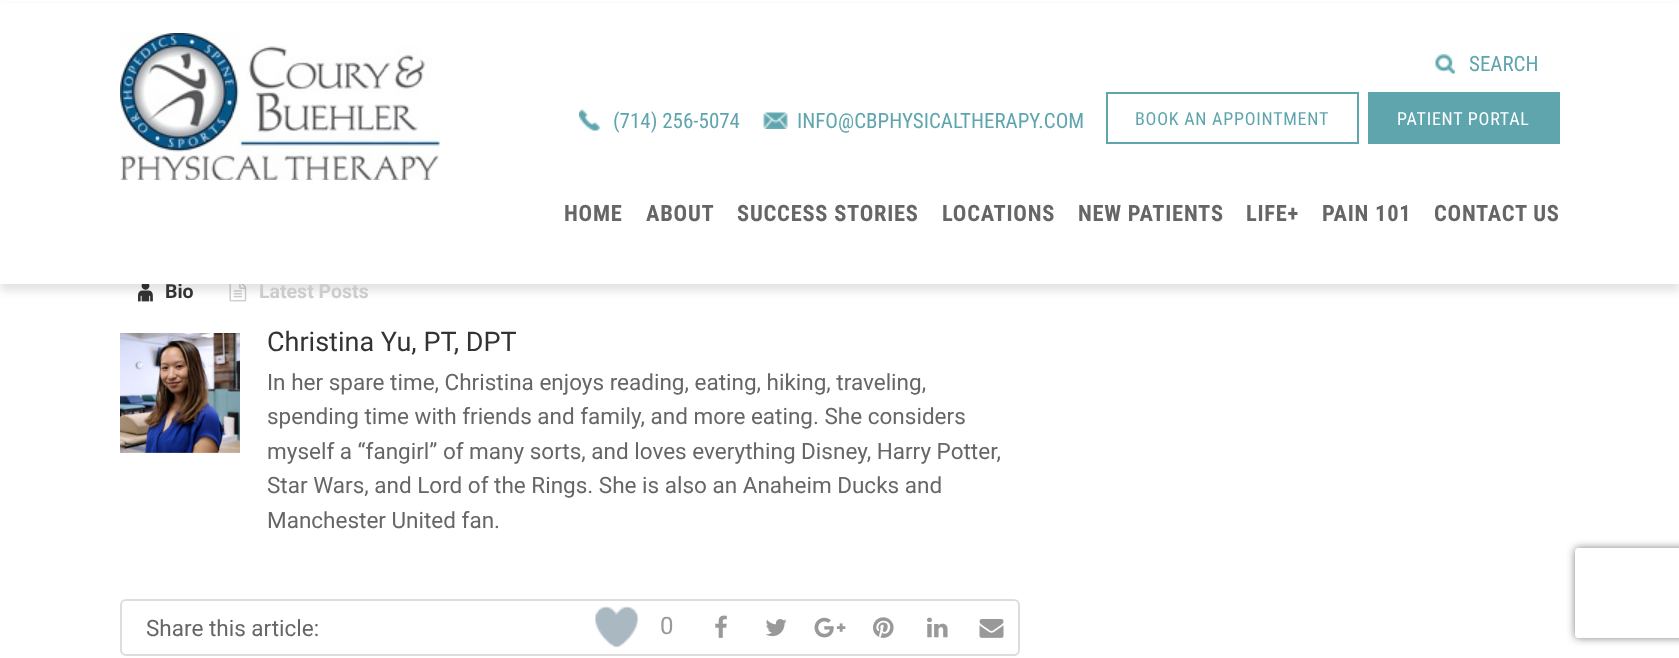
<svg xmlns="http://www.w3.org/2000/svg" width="1679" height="658">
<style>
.a{font:bold 19.5px Roboto;fill:#333}
.b{font:bold 22.5px Roboto Condensed;letter-spacing:0.75px;fill:#666}
.c{font:21px Roboto Condensed;fill:#5ea5ae}
.d{font:18px Roboto Condensed;letter-spacing:0.75px;fill:#fff}
.e{font:18px Roboto Condensed;letter-spacing:0.75px;fill:#5ea5ae}
.f{font:bold 19.5px Roboto;fill:#ccc}
.g{font:27px Roboto;fill:#333}
.h{font:22.5px Roboto;fill:#666}
.i{font:24px Roboto;fill:#999}
</style>
<defs>
<clipPath id="clip1"><path d="M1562 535h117v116h-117zm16 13h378c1.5 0 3 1.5 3 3v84c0 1.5-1.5 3-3 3h-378c-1.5 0-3-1.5-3-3v-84c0-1.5 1.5-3 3-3z" clip-rule="evenodd"/></clipPath>
</defs>
<rect width="100%" height="100%" fill="#fff"/>
<image href="5.png" x="138" y="284" width="15" height="18"/>
<image href="6.png" x="229" y="284" width="18" height="18"/>
<path fill="#0202021c" filter="blur(4px)" d="M0 8h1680v283H0z"/>
<image href="7.png" x="120" y="333" width="120" height="120"/>
<rect fill="none" stroke="#ddd" stroke-width="2" x="121" y="600" width="898" height="55" rx="5"/>
<image href="8.png" x="595" y="606" width="44" height="42"/>
<image href="9.png" x="715" y="615" width="12" height="23"/>
<image href="10.png" x="766" y="619" width="21" height="18"/>
<image href="11.png" x="814" y="617" width="32" height="21"/>
<image href="12.png" x="873" y="617" width="21" height="21"/>
<image href="13.png" x="927" y="617" width="21" height="21"/>
<image href="14.png" x="979" y="619" width="25" height="19"/>
<g clip-path="url(#clip1)">
<rect fill="#808080" filter="blur(4px)" x="1575" y="548" width="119" height="90" rx="3"/>
</g>
<text class="a" x="165" y="298">Bio</text>
<path fill="#fff" d="M0 3h1679v281H0z"/>
<text class="b" x="1434" y="221">CONTACT US</text>
<text class="b" x="1322" y="221">PAIN 101</text>
<text class="b" x="1246" y="221">LIFE+</text>
<text class="b" x="1078" y="221">NEW PATIENTS</text>
<text class="b" x="942" y="221">LOCATIONS</text>
<text class="b" x="737" y="221">SUCCESS STORIES</text>
<text class="b" x="646" y="221">ABOUT</text>
<text class="b" x="564" y="221">HOME</text>
<text class="c" x="797" y="128">INFO@CBPHYSICALTHERAPY.COM</text>
<image href="4.png" x="763" y="112" width="25" height="17"/>
<text class="c" x="613" y="128">(714) 256-5074</text>
<image href="3.png" x="579" y="109" width="21" height="22"/>
<path fill="#5ea5ae" d="M1368 92h192v52H1368z"/>
<text class="d" x="1397" y="125">PATIENT PORTAL</text>
<path fill="none" stroke="#5ea5ae" stroke-width="2" d="M1107 93h251v50H1107z"/>
<text class="e" x="1135" y="125">BOOK AN APPOINTMENT</text>
<text class="c" x="1469" y="71">SEARCH</text>
<image href="2.png" x="1435" y="54" width="20" height="20"/>
<image href="1.png" x="120" y="33" width="320" height="147"/>
<text class="f" x="259" y="298">Latest Posts</text>
<text class="g" x="267" y="351">Christina Yu, PT, DPT</text>
<text class="h" x="267" y="390">In her spare time, Christina enjoys reading, eating, hiking, traveling,</text>
<text class="h" x="267" y="424">spending time with friends and family, and more eating. She considers</text>
<text class="h" x="267" y="459">myself a “fangirl” of many sorts, and loves everything Disney, Harry Potter,</text>
<text class="h" x="267" y="493">Star Wars, and Lord of the Rings. She is also an Anaheim Ducks and</text>
<text class="h" x="267" y="528">Manchester United fan.</text>
<text class="h" x="146" y="636">Share this article:</text>
<text class="i" x="660" y="634">0</text>
</svg>
